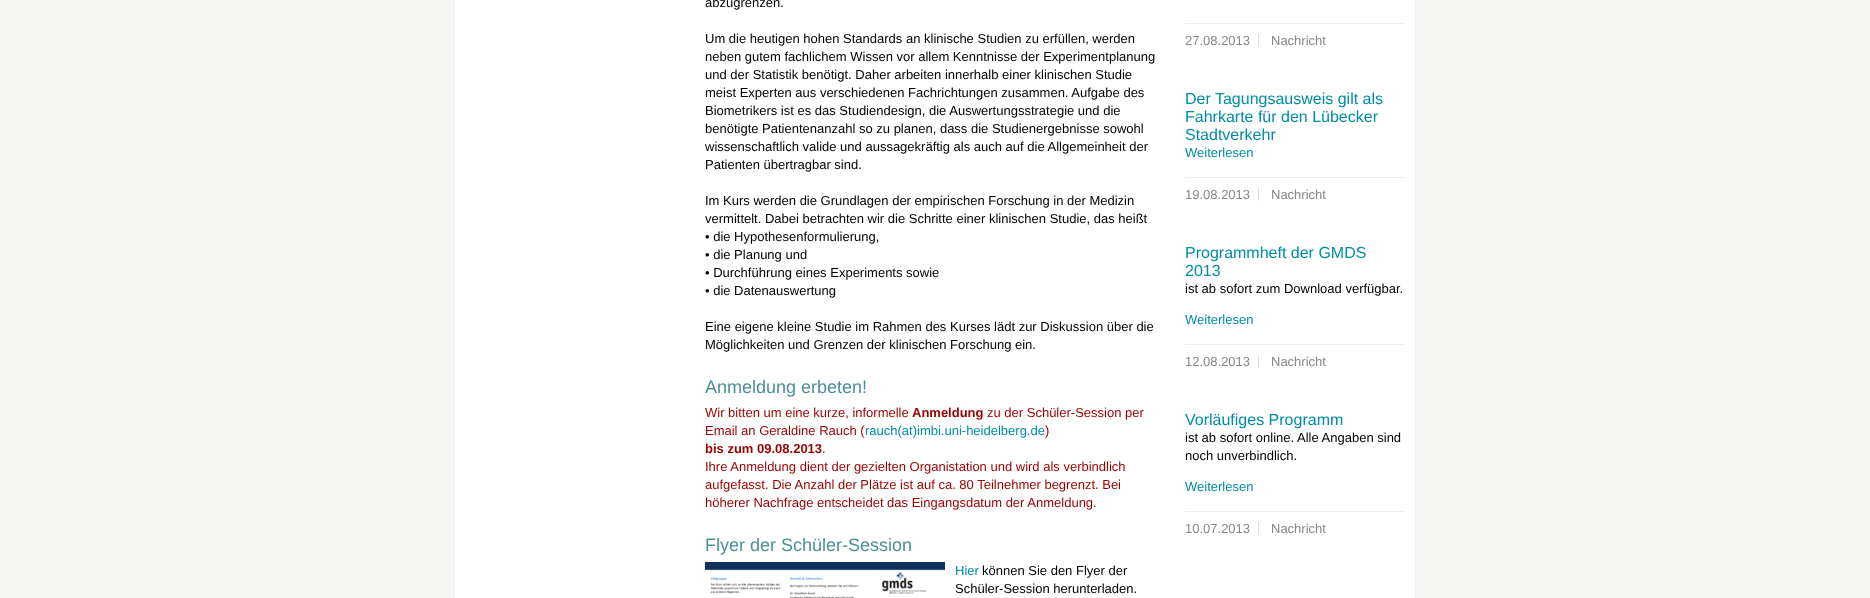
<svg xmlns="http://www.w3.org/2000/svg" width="1870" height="598">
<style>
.a{font:13px Liberation Sans;fill:#000}
.b{font:18px Liberation Sans;fill:#4c8f99}
.c{font:13px Liberation Sans;fill:#900}
.d{font:bold 13px Liberation Sans;fill:#900}
.e{font:13px Liberation Sans;fill:#008da5}
.f{font:13px Liberation Sans;fill:#888}
.g{font:16px Liberation Sans;fill:#008da5}
</style>
<rect width="100%" height="100%" fill="#f5f6f3"/>
<path fill="#fff" d="M455 0h960v598H455z"/>
<image href="1.png" x="705" y="562" width="240" height="36"/>
<path fill="#eee" d="M1185 23h220v1H1185z"/>
<path fill="#ddd" d="M1258 34h1v13H1258z"/>
<path fill="#eee" d="M1185 177h220v1H1185z"/>
<path fill="#ddd" d="M1258 188h1v13H1258z"/>
<path fill="#eee" d="M1185 344h220v1H1185z"/>
<path fill="#ddd" d="M1258 355h1v13H1258z"/>
<path fill="#eee" d="M1185 511h220v1H1185z"/>
<path fill="#ddd" d="M1258 522h1v13H1258z"/>
<text class="a" x="705" y="7">abzugrenzen.</text>
<text class="a" x="705" y="43">Um die heutigen hohen Standards an klinische Studien zu erfüllen, werden</text>
<text class="a" x="705" y="61">neben gutem fachlichem Wissen vor allem Kenntnisse der Experimentplanung</text>
<text class="a" x="705" y="79">und der Statistik benötigt. Daher arbeiten innerhalb einer klinischen Studie</text>
<text class="a" x="705" y="97">meist Experten aus verschiedenen Fachrichtungen zusammen. Aufgabe des</text>
<text class="a" x="705" y="115">Biometrikers ist es das Studiendesign, die Auswertungsstrategie und die</text>
<text class="a" x="705" y="133">benötigte Patientenanzahl so zu planen, dass die Studienergebnisse sowohl</text>
<text class="a" x="705" y="151">wissenschaftlich valide und aussagekräftig als auch auf die Allgemeinheit der</text>
<text class="a" x="705" y="169">Patienten übertragbar sind.</text>
<text class="a" x="705" y="205">Im Kurs werden die Grundlagen der empirischen Forschung in der Medizin</text>
<text class="a" x="705" y="223">vermittelt. Dabei betrachten wir die Schritte einer klinischen Studie, das heißt</text>
<text class="a" x="705" y="241">• die Hypothesenformulierung,</text>
<text class="a" x="705" y="259">• die Planung und</text>
<text class="a" x="705" y="277">• Durchführung eines Experiments sowie</text>
<text class="a" x="705" y="295">• die Datenauswertung</text>
<text class="a" x="705" y="331">Eine eigene kleine Studie im Rahmen des Kurses lädt zur Diskussion über die</text>
<text class="a" x="705" y="349">Möglichkeiten und Grenzen der klinischen Forschung ein.</text>
<text class="b" x="705" y="393">Anmeldung erbeten!</text>
<text class="c" x="705" y="417">Wir bitten um eine kurze, informelle</text>
<text class="d" x="912" y="417">Anmeldung</text>
<text class="c" x="987" y="417">zu der Schüler-Session per</text>
<text class="c" x="705" y="435">Email an Geraldine Rauch (</text>
<text class="e" x="865" y="435">rauch(at)imbi.uni-heidelberg.de</text>
<text class="c" x="1045" y="435">)</text>
<text class="d" x="705" y="453">bis zum 09.08.2013</text>
<text class="c" x="822" y="453">.</text>
<text class="c" x="705" y="471">Ihre Anmeldung dient der gezielten Organistation und wird als verbindlich</text>
<text class="c" x="705" y="489">aufgefasst. Die Anzahl der Plätze ist auf ca. 80 Teilnehmer begrenzt. Bei</text>
<text class="c" x="705" y="507">höherer Nachfrage entscheidet das Eingangsdatum der Anmeldung.</text>
<text class="b" x="705" y="551">Flyer der Schüler-Session</text>
<text class="e" x="955" y="575">Hier</text>
<text class="a" x="982" y="575">können Sie den Flyer der</text>
<text class="a" x="955" y="593">Schüler-Session herunterladen.</text>
<text class="f" x="1185" y="45">27.08.2013</text>
<text class="f" x="1271" y="45">Nachricht</text>
<text class="g" x="1185" y="104">Der Tagungsausweis gilt als</text>
<text class="g" x="1185" y="122">Fahrkarte für den Lübecker</text>
<text class="g" x="1185" y="140">Stadtverkehr</text>
<text class="e" x="1185" y="157">Weiterlesen</text>
<text class="f" x="1185" y="199">19.08.2013</text>
<text class="f" x="1271" y="199">Nachricht</text>
<text class="g" x="1185" y="258">Programmheft der GMDS</text>
<text class="g" x="1185" y="276">2013</text>
<text class="a" x="1185" y="293">ist ab sofort zum Download verfügbar.</text>
<text class="e" x="1185" y="324">Weiterlesen</text>
<text class="f" x="1185" y="366">12.08.2013</text>
<text class="f" x="1271" y="366">Nachricht</text>
<text class="g" x="1185" y="425">Vorläufiges Programm</text>
<text class="a" x="1185" y="442">ist ab sofort online. Alle Angaben sind</text>
<text class="a" x="1185" y="460">noch unverbindlich.</text>
<text class="e" x="1185" y="491">Weiterlesen</text>
<text class="f" x="1185" y="533">10.07.2013</text>
<text class="f" x="1271" y="533">Nachricht</text>
</svg>
